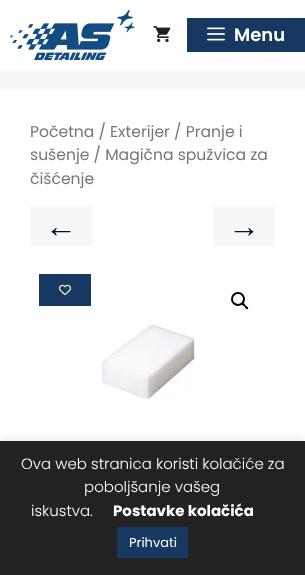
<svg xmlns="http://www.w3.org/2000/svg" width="305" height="575">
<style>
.a{font:600 18px Poppins;fill:#fff}
.b{font:15.6px Poppins;fill:#767676}
.c{font:32px Liberation Sans;fill:#071330}
.d{font:300 15px Poppins;fill:#fff}
.e{font:bold 15px Poppins;fill:#fff}
.f{font:13px Poppins;fill:#fff}
</style>
<rect width="100%" height="100%" fill="#f7f8f9"/>
<path fill="#fff" d="M0 0h305v70H0z"/>
<image href="1.png" x="10" y="10" width="125" height="50"/>
<image href="2.png" x="153" y="26" width="18" height="16"/>
<path fill="#163861" d="M187 18h118v34H187z"/>
<image href="3.png" x="207" y="27" width="18" height="14"/>
<path fill="#fff" d="M0 90h305v351H0z"/>
<path fill="#f7f8f9" d="M30 206h62v40H30z"/>
<path fill="#f7f8f9" d="M213 206h62v40H213z"/>
<path fill="#163861" d="M39 274h52v32H39z"/>
<image href="4.png" x="59" y="284" width="12" height="11"/>
<circle fill="none" stroke="#000" stroke-width="2" cx="238" cy="299" r="6"/>
<path fill="#000" d="M242 303c1.5-1 3 1.5 3.5 2.5c1 .5 3.5 2 2.5 3.5c-1.5 1-3-1.5-3.5-2.5c-1-.5-3.5-2-2.5-3.5z"/>
<image href="5.png" x="101" y="324" width="95" height="76"/>
<path fill="#acabab4d" filter="blur(5px)" d="M0 440h305v134H0z"/>
<path fill="#222" d="M0 441h305v134H0z"/>
<path fill="#163861" d="M117 527h71v31H117z"/>
<text class="a" x="234" y="41">Menu</text>
<text class="b" x="30" y="137">Početna / Exterijer / Pranje i</text>
<text class="b" x="30" y="160">sušenje / Magična spužvica za</text>
<text class="b" x="30" y="184">čišćenje</text>
<text class="c" x="45" y="237">←</text>
<text class="c" x="228" y="237">→</text>
<text class="d" x="21" y="469">Ova web stranica koristi kolačiće za</text>
<text class="d" x="84" y="492">poboljšanje vašeg</text>
<text class="d" x="31" y="516">iskustva.</text>
<text class="e" x="113" y="516">Postavke kolačića</text>
<text class="f" x="129" y="547">Prihvati</text>
</svg>
